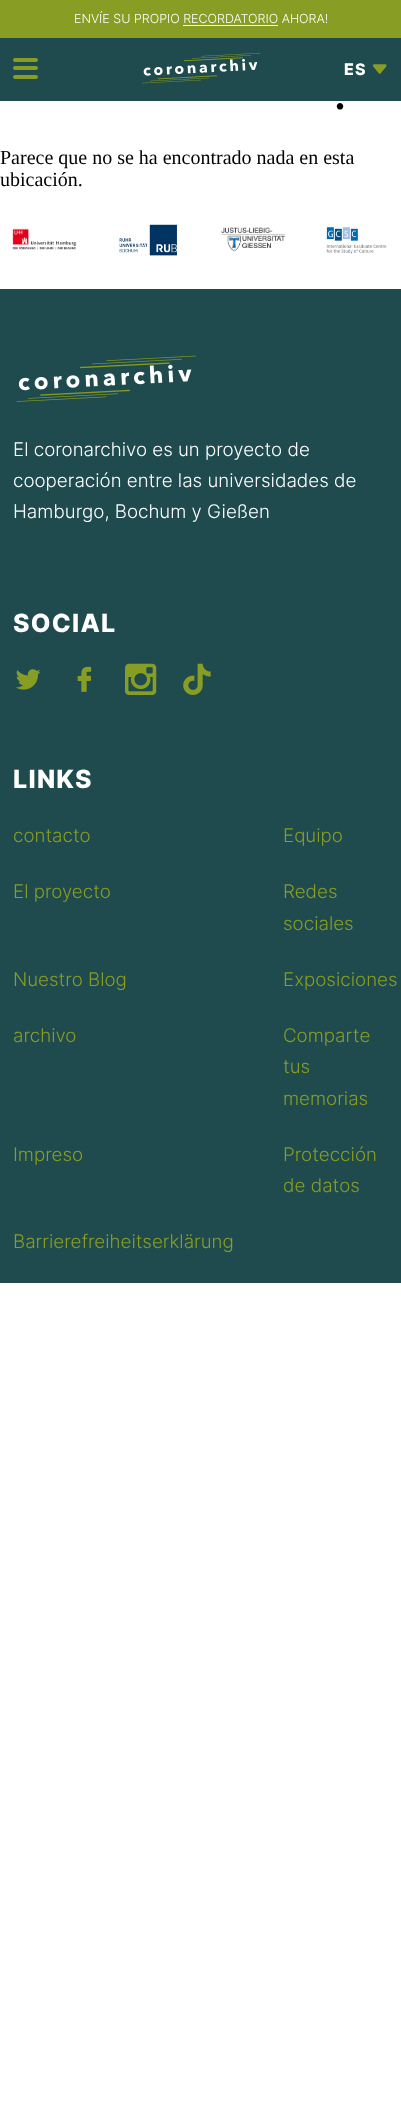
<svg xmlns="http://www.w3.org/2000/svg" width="401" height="2126">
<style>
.a{font:300 12.5px Inter;fill:#fff}
.b{font:800 16px Inter;letter-spacing:1.25px;fill:#fff}
.c{font:bold 40px Liberation Serif;fill:#000}
.d{font:20px Liberation Serif;fill:#000}
.e{font:300 18.75px Inter;fill:#fff}
.f{font:800 25px Inter;letter-spacing:1.25px;fill:#fff}
.g{font:300 18.75px Inter;fill:#879d24}
</style>
<rect width="100%" height="100%" fill="#fff"/>
<path fill="#1f4b4e" d="M0 38h401v63H0z"/>
<path fill="#879d24" d="M0 0h401v38H0z"/>
<path fill="#fff" d="M183 25h95v1H183z"/>
<rect fill="#879d24" x="13" y="58" width="25" height="4" rx="2"/>
<rect fill="#879d24" x="13" y="66" width="25" height="4" rx="2"/>
<rect fill="#879d24" x="13" y="75" width="25" height="4" rx="2"/>
<image href="1.png" x="142" y="52" width="119" height="32"/>
<image href="2.png" x="372" y="64" width="15" height="10"/>
<image href="3.png" x="12" y="228" width="65" height="22"/>
<image href="4.png" x="119" y="224" width="58" height="32"/>
<image href="5.png" x="221" y="227" width="64" height="25"/>
<image href="6.png" x="326" y="227" width="61" height="27"/>
<path fill="#1f4b4e" d="M0 289h401v994H0z"/>
<image href="7.png" x="16" y="355" width="180" height="47"/>
<image href="8.png" x="15" y="669" width="26" height="21"/>
<image href="9.png" x="77" y="666" width="15" height="26"/>
<image href="10.png" x="125" y="663" width="32" height="32"/>
<image href="11.png" x="183" y="663" width="28" height="32"/>
<text class="a" x="74" y="23">ENVÍE SU PROPIO RECORDATORIO AHORA!</text>
<text class="b" x="344" y="75">ES</text>
<text class="c" x="335" y="109">.</text>
<text class="d" x="0" y="164">Parece que no se ha encontrado nada en esta</text>
<text class="d" x="0" y="186">ubicación.</text>
<text class="e" x="13" y="456">El coronarchivo es un proyecto de</text>
<text class="e" x="13" y="487">cooperación entre las universidades de</text>
<text class="e" x="13" y="518">Hamburgo, Bochum y Gießen</text>
<text class="f" x="13" y="632">SOCIAL</text>
<text class="f" x="13" y="788">LINKS</text>
<text class="g" x="13" y="842">contacto</text>
<text class="g" x="283" y="842">Equipo</text>
<text class="g" x="13" y="898">El proyecto</text>
<text class="g" x="283" y="898">Redes</text>
<text class="g" x="283" y="930">sociales</text>
<text class="g" x="13" y="986">Nuestro Blog</text>
<text class="g" x="283" y="986">Exposiciones</text>
<text class="g" x="13" y="1042">archivo</text>
<text class="g" x="283" y="1042">Comparte</text>
<text class="g" x="283" y="1073">tus</text>
<text class="g" x="283" y="1105">memorias</text>
<text class="g" x="13" y="1161">Impreso</text>
<text class="g" x="283" y="1161">Protección</text>
<text class="g" x="283" y="1192">de datos</text>
<text class="g" x="13" y="1248">Barrierefreiheitserklärung</text>
</svg>
